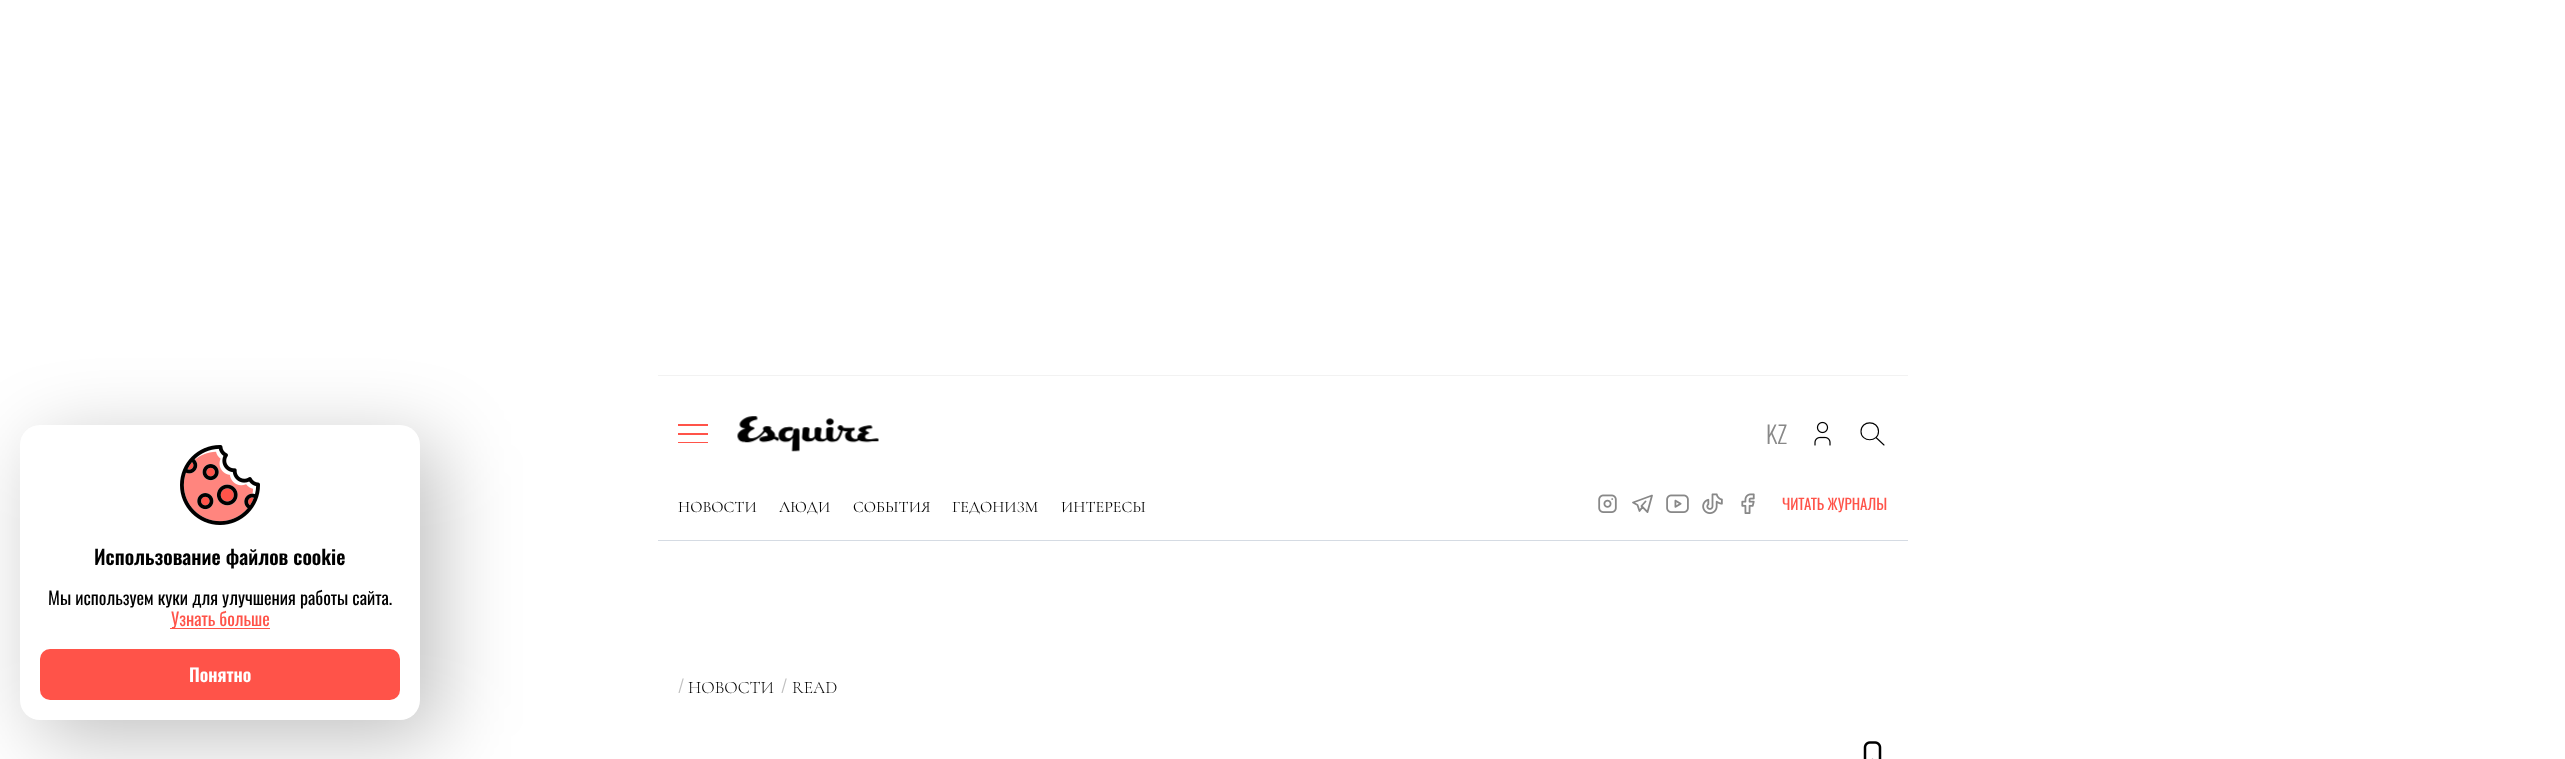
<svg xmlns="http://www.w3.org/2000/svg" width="2565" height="759">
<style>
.a{font:300 24px Oswald;fill:#888}
.b{font:16px Cormorant Garamond;fill:#000}
.c{font:15px Oswald;fill:#ff5349}
.d{font:600 20px Oswald;fill:#000}
.e{font:18px Oswald;fill:#000}
.f{font:18px Oswald;fill:#ff5349}
.g{font:600 18px Oswald;fill:#fff}
.h{font:300 18px Oswald;fill:#bfbfbf}
.i{font:300 17.5px Cormorant Garamond;fill:#000}
</style>
<rect width="100%" height="100%" fill="#fff"/>
<path fill="#f2f2f2" d="M658 375h1250v1H658z"/>
<path fill="#d5dbe3" d="M658 540h1250v1H658z"/>
<path fill="#ff5349" d="M678 424h30v2H678z"/>
<path fill="#ff5349" d="M678 433h30v2H678z"/>
<path fill="#ff5349" d="M678 442h30v1H678z"/>
<image href="1.png" x="737" y="416" width="142" height="36"/>
<image href="2.png" x="1814" y="421" width="17" height="25"/>
<path fill="none" stroke="#000" stroke-width="1.1" stroke-linecap="round" stroke-linejoin="round" d="M1861 431.5c0 11 17.5 11 17.5 0c0-11.5-17.5-11.5-17.5 0zm23 13.5l-8-7.5"/>
<image href="3.png" x="1598" y="494" width="19" height="19"/>
<path fill="none" stroke="#888" stroke-width="1.8" stroke-linecap="round" stroke-linejoin="round" d="M1645.5 501.5l-4 4.5l6 6l4.5-16.5l-19 7l4.5 2.5l2 6l3-4"/>
<image href="4.png" x="1666" y="494" width="23" height="19"/>
<image href="5.png" x="1702" y="493" width="21" height="21"/>
<image href="6.png" x="1741" y="493" width="14" height="21"/>
<rect fill="#00000040" filter="blur(40px)" x="38" y="443" width="400" height="295" rx="20"/>
<rect fill="#fff" x="20" y="425" width="400" height="295" rx="20"/>
<image href="7.png" x="180" y="445" width="80" height="80"/>
<path fill="#ff5349" d="M170 628h100v1H170z"/>
<rect fill="#ff5349" x="40" y="649" width="360" height="51" rx="10"/>
<image href="8.png" x="1863" y="741" width="19" height="18"/>
<text class="a" x="1766" y="444">KZ</text>
<text class="b" x="678" y="512">НОВОСТИ</text>
<text class="b" x="779" y="512">ЛЮДИ</text>
<text class="b" x="853" y="512">СОБЫТИЯ</text>
<text class="b" x="952" y="512">ГЕДОНИЗМ</text>
<text class="b" x="1061" y="512">ИНТЕРЕСЫ</text>
<text class="c" x="1782" y="510">ЧИТАТЬ ЖУРНАЛЫ</text>
<text class="d" x="94" y="565">Использование файлов cookie</text>
<text class="e" x="48" y="605">Мы используем куки для улучшения работы сайта.</text>
<text class="f" x="171" y="626">Узнать больше</text>
<text class="g" x="189" y="682">Понятно</text>
<text class="h" x="678" y="693">/</text>
<text class="i" x="688" y="693">НОВОСТИ</text>
<text class="h" x="781" y="693">/</text>
<text class="i" x="792" y="693">READ</text>
</svg>
